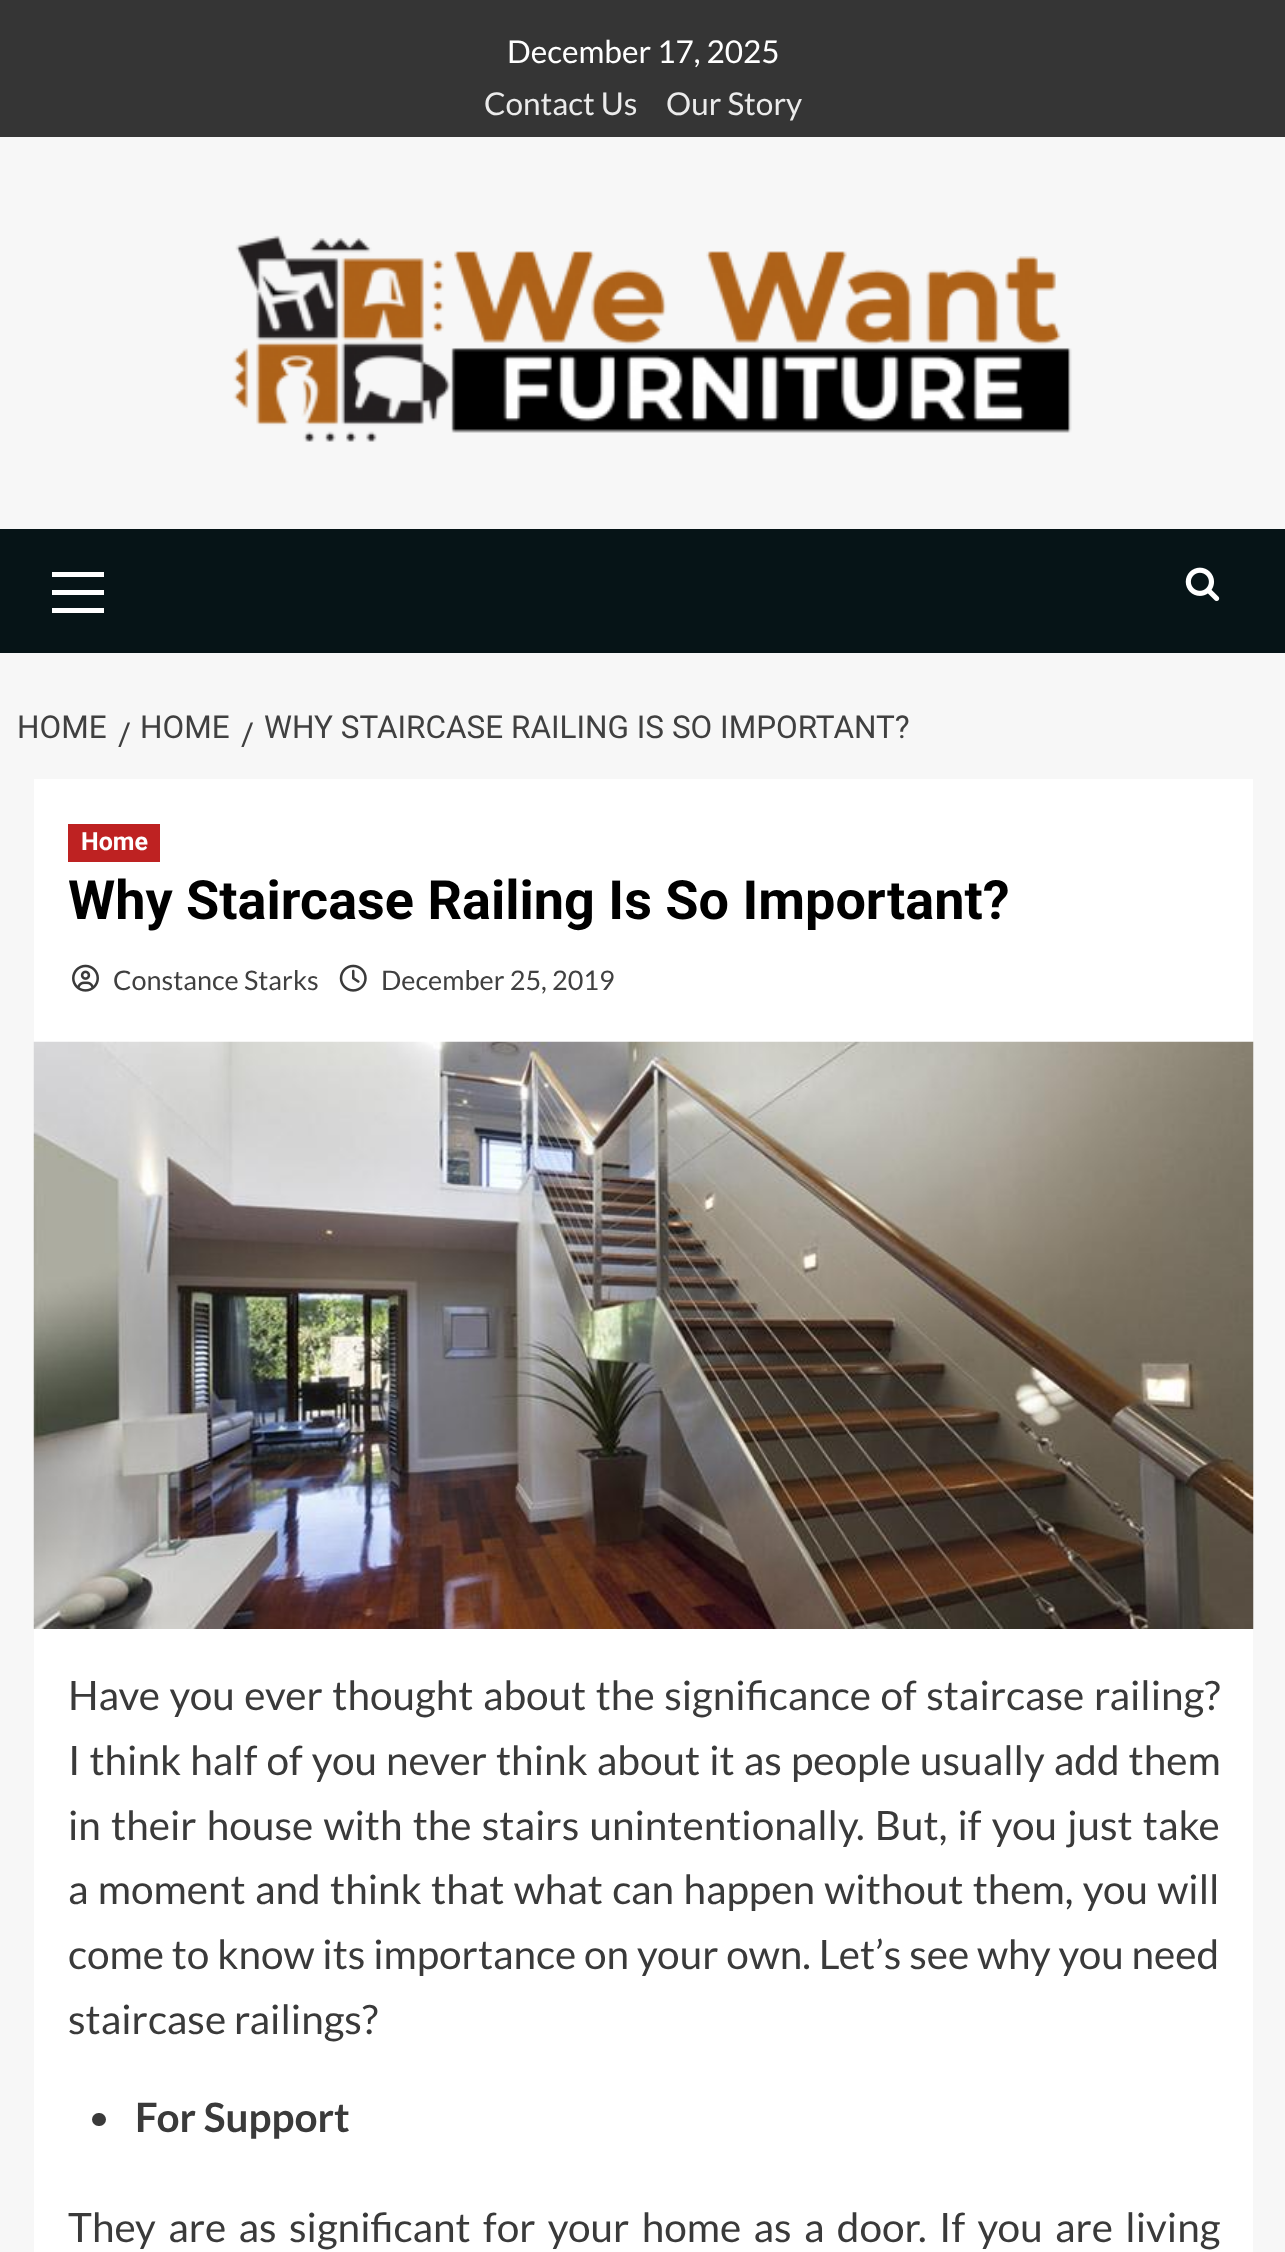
<svg xmlns="http://www.w3.org/2000/svg" width="1285" height="2252">
<style>
.a{font:31.5px Lato;fill:#fff}
.b{font:31.5px Lato;fill:#ebebeb}
.c{font:31.5px Roboto;fill:#404040}
.d{font:bold 25px Roboto;fill:#fff}
.e{font:bold 54px Roboto;fill:#000}
.f{font:27px Lato;fill:#404040}
.g{font:40.5px Lato;fill:#3a3a3a}
.h{font:bold 40.5px Lato;fill:#3a3a3a}
</style>
<rect width="100%" height="100%" fill="#f7f7f7"/>
<path fill="#353535" d="M0 0h1285v137H0z"/>
<image href="1.png" x="233" y="235" width="839" height="207"/>
<path fill="#061417" d="M0 529h1285v124H0z"/>
<path fill="#fff" d="M52 590h52v5H52z"/>
<path fill="#fff" d="M52 572h52v5H52z"/>
<path fill="#fff" d="M52 608h52v5H52z"/>
<image href="2.png" x="1185" y="567" width="35" height="35"/>
<path fill="#fff" d="M34 779h1219v1473H34z"/>
<path fill="#be2222" d="M68 824h92v38H68z"/>
<image href="3.png" x="72" y="964" width="27" height="28"/>
<image href="4.png" x="339" y="964" width="28" height="28"/>
<image href="5.png" x="33" y="1041" width="1221" height="588"/>
<rect fill="#3a3a3a" x="92" y="2113" width="14" height="13" rx="6.5"/>
<text class="a" x="507" y="63">December 17, 2025</text>
<text class="b" x="484" y="115">Contact Us</text>
<text class="b" x="666" y="115">Our Story</text>
<text class="c" x="17" y="738">HOME</text>
<text class="c" x="118" y="745">/</text>
<text class="c" x="140" y="738">HOME</text>
<text class="c" x="241" y="745">/</text>
<text class="c" x="264" y="738">WHY STAIRCASE RAILING IS SO IMPORTANT?</text>
<text class="d" x="81" y="850">Home</text>
<text class="e" x="68" y="919">Why Staircase Railing Is So Important?</text>
<text class="f" x="113" y="990">Constance Starks</text>
<text class="f" x="381" y="990">December 25, 2019</text>
<text class="g" x="68" y="1710" word-spacing="1.75">Have you ever thought about the significance of staircase railing?</text>
<text class="g" x="68" y="1775" word-spacing="1.25">I think half of you never think about it as people usually add them</text>
<text class="g" x="68" y="1840" word-spacing="2.4">in their house with the stairs unintentionally. But, if you just take</text>
<text class="g" x="68" y="1904" word-spacing="1.5">a moment and think that what can happen without them, you will</text>
<text class="g" x="68" y="1969">come to know its importance on your own. Let’s see why you need</text>
<text class="g" x="68" y="2034">staircase railings?</text>
<text class="h" x="135" y="2132">For Support</text>
<text class="g" x="68" y="2242" word-spacing="4.5">They are as significant for your home as a door. If you are living</text>
</svg>
